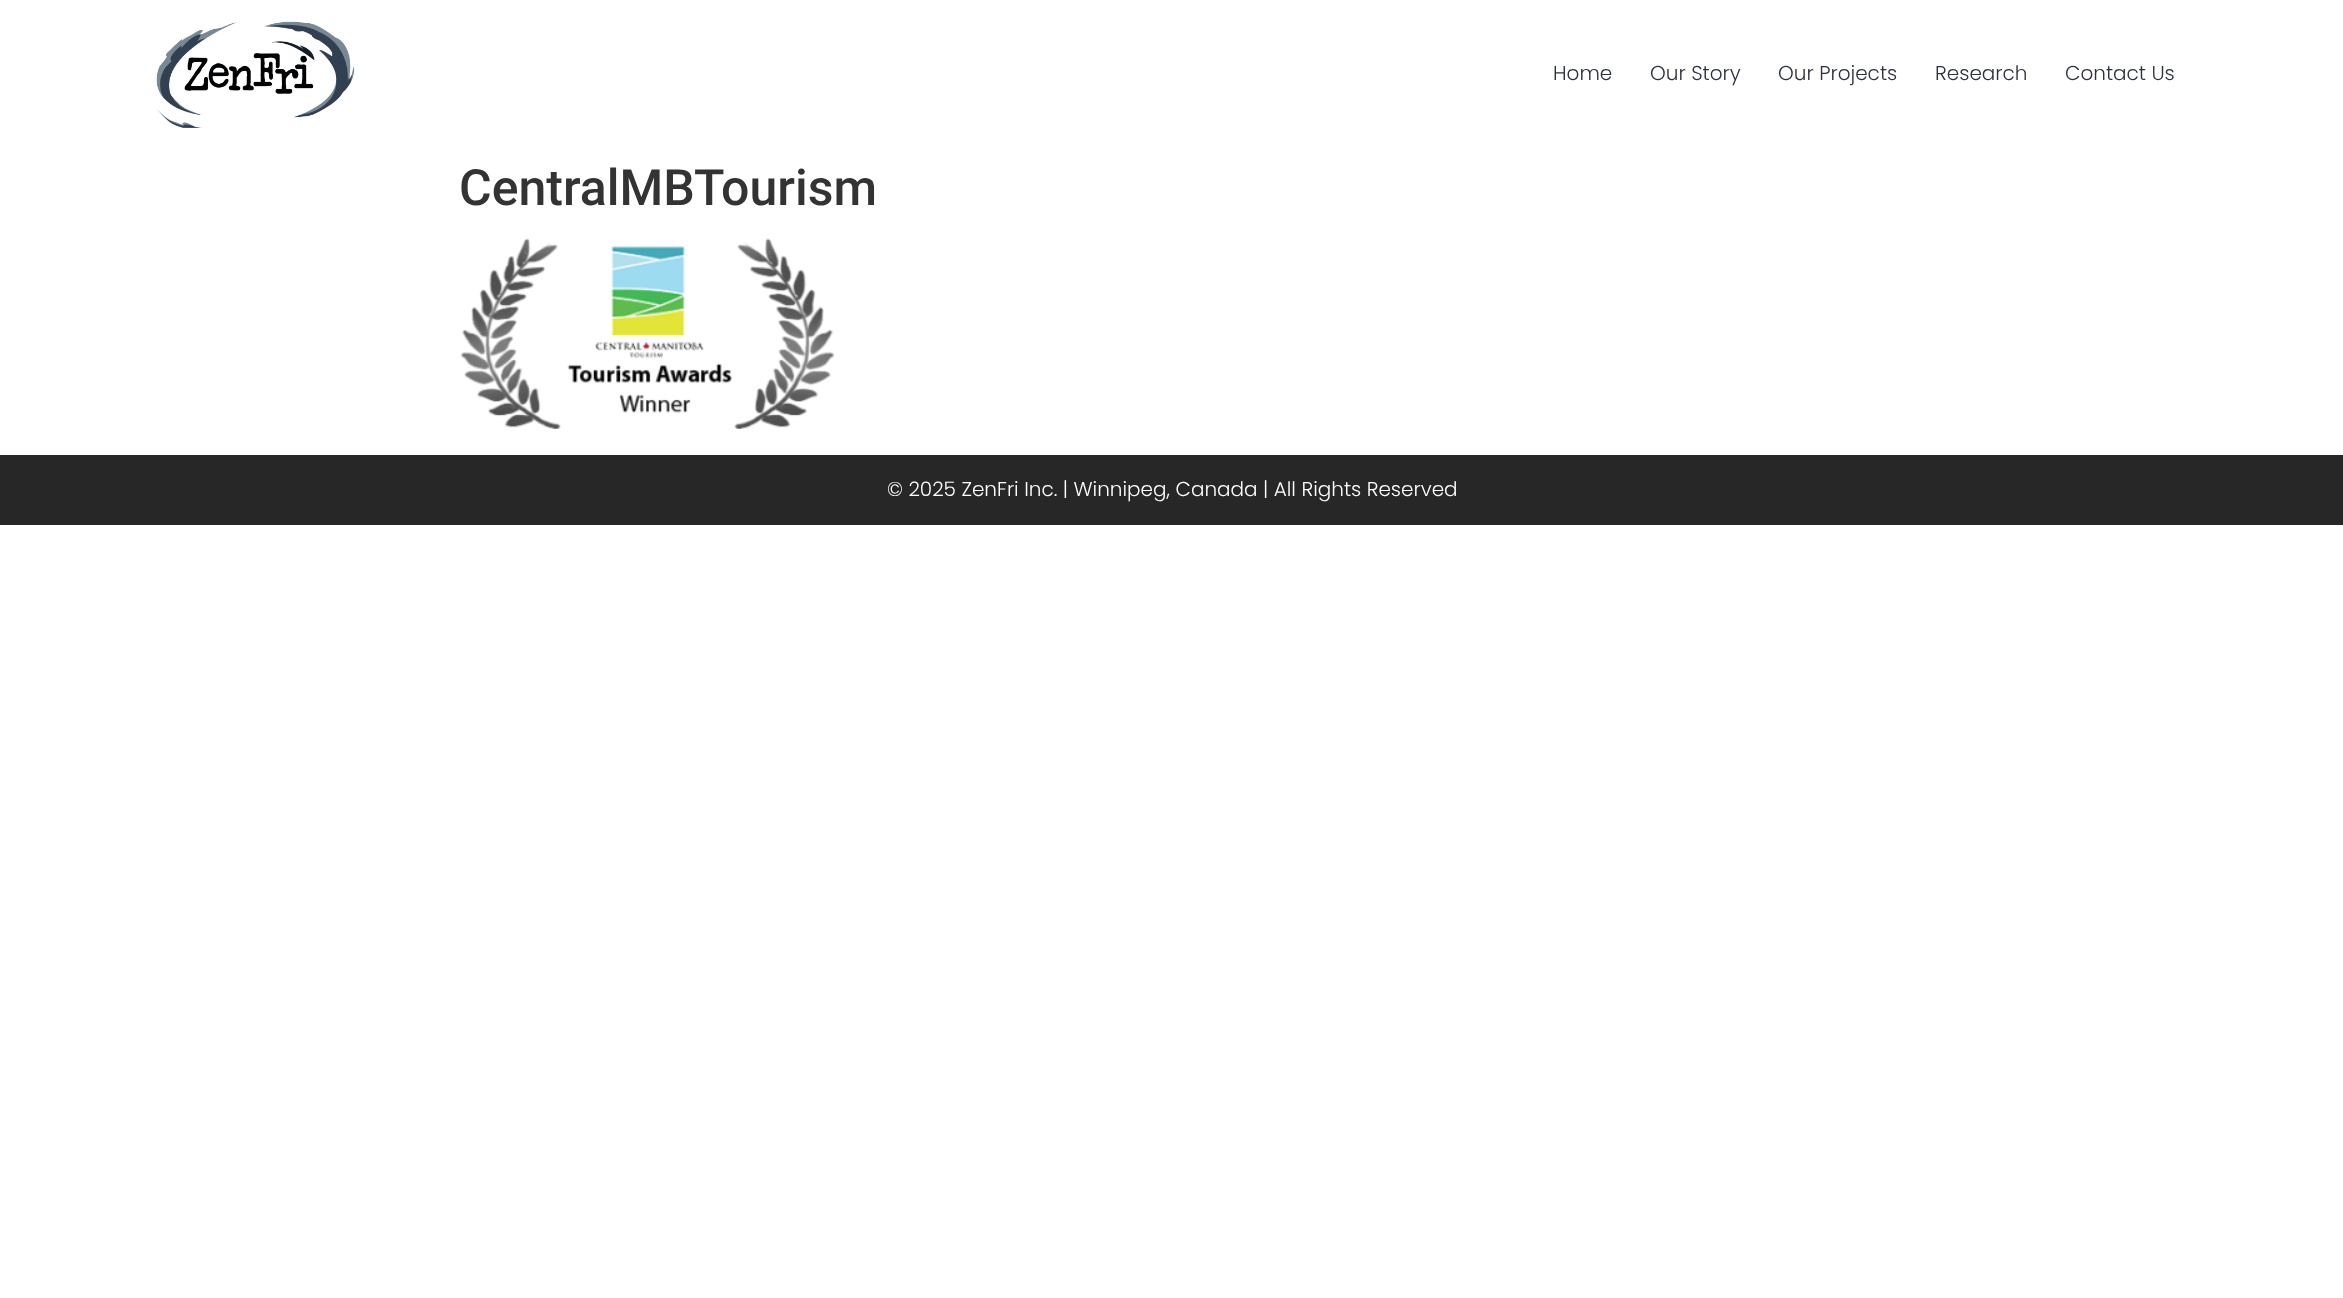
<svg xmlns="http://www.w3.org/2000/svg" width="2343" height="1298">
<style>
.a{font:300 20px Poppins;fill:#2d303e}
.b{font:500 50px Roboto;fill:#333}
.c{font:300 20px Poppins;fill:#fff}
</style>
<rect width="100%" height="100%" fill="#fff"/>
<image href="1.png" x="156" y="21" width="199" height="107"/>
<image href="2.png" x="460" y="238" width="375" height="191"/>
<path fill="#272727" d="M0 455h2343v70H0z"/>
<text class="a" x="1553" y="80">Home</text>
<text class="a" x="1650" y="80">Our Story</text>
<text class="a" x="1778" y="80">Our Projects</text>
<text class="a" x="1935" y="80">Research</text>
<text class="a" x="2065" y="80">Contact Us</text>
<text class="b" x="459" y="205">CentralMBTourism</text>
<text class="c" x="887" y="496">© 2025 ZenFri Inc. | Winnipeg, Canada | All Rights Reserved</text>
</svg>
